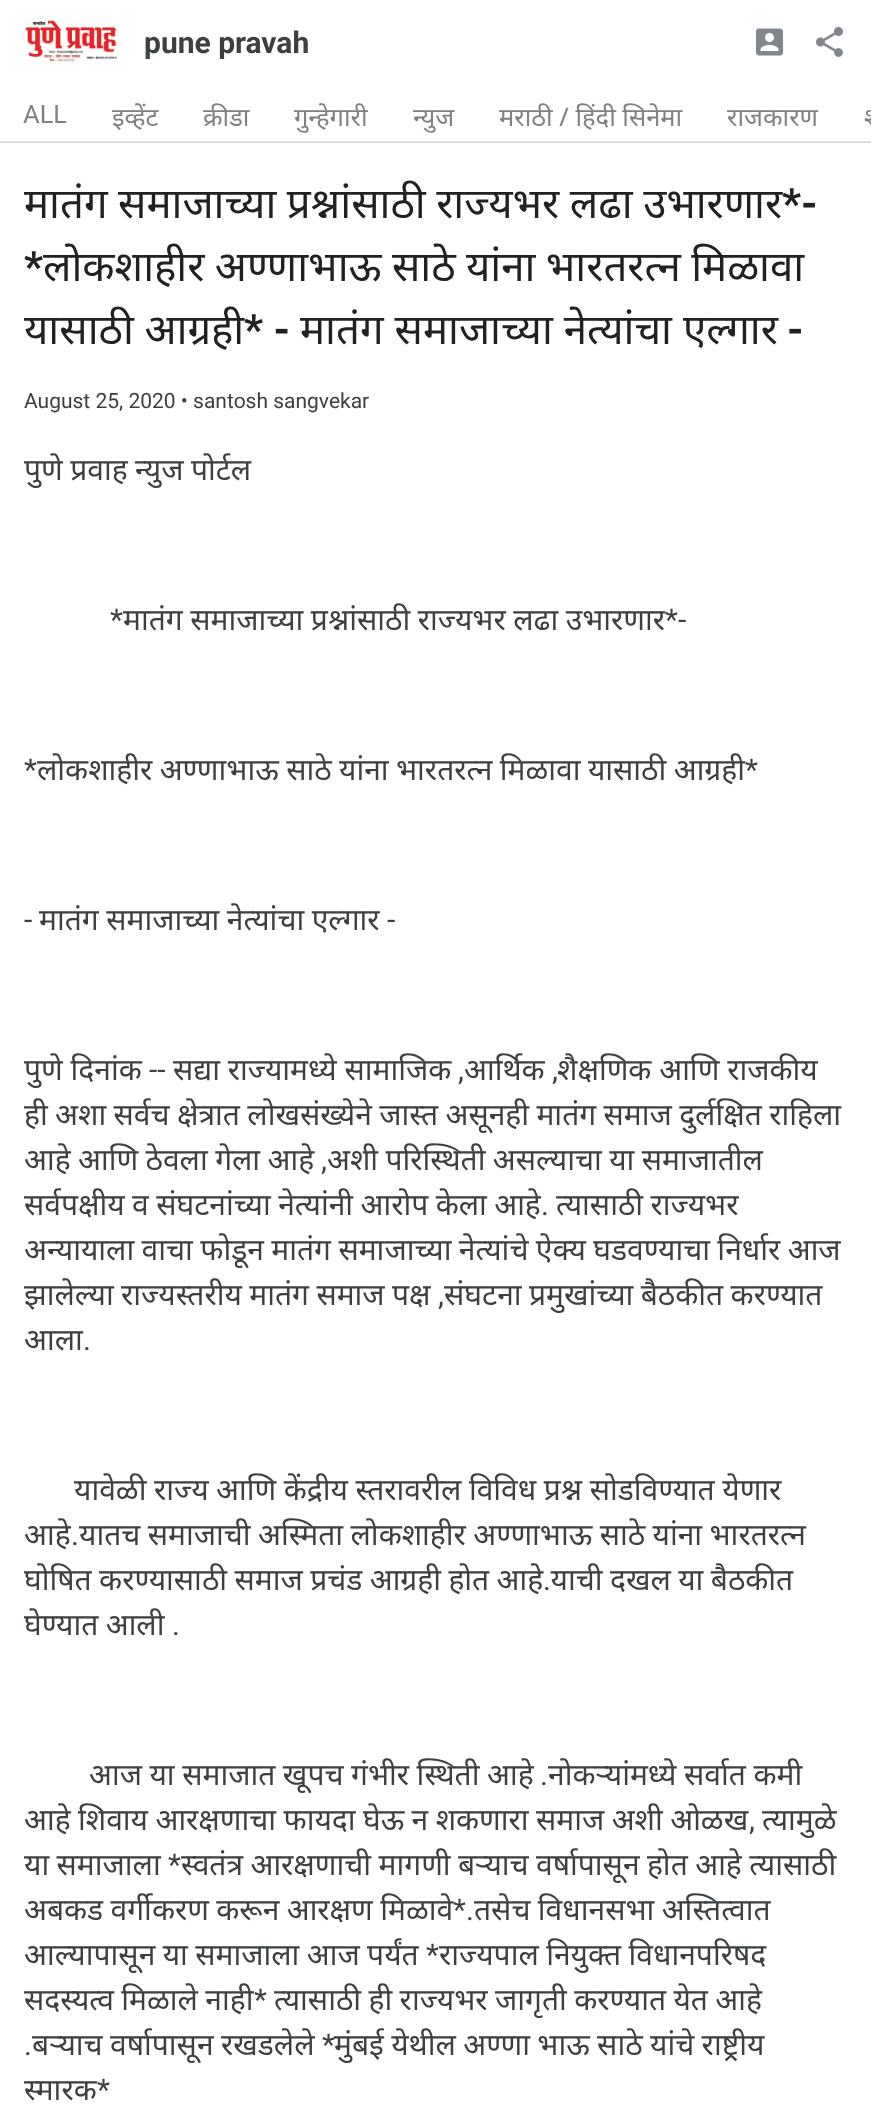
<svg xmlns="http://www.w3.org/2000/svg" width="871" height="2110">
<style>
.a{font:bold 30px Roboto;fill:#3c4043}
.b{font:25.5px Roboto;fill:#808080}
.c{font:25.5px Noto Sans;fill:#808080}
.d{font:42px Noto Sans;fill:#202124}
.e{font:bold 42px Roboto;fill:#202124}
.f{font:21px Roboto;fill:#3c4043}
.g{font:30px Noto Sans;fill:#3c4043}
.h{font:30px Roboto;fill:#3c4043}
</style>
<rect width="100%" height="100%" fill="#fff"/>
<path fill="#e0e0e0" d="M0 141h871v2H0z"/>
<image href="1.png" x="24" y="20" width="93" height="42"/>
<image href="2.png" x="756" y="28" width="27" height="28"/>
<image href="3.png" x="816" y="27" width="27" height="30"/>
<text class="a" x="144" y="53">pune pravah</text>
<text class="b" x="23" y="123">ALL</text>
<text class="c" x="112" y="126">इव्हेंट</text>
<text class="c" x="203" y="126">क्रीडा</text>
<text class="c" x="294" y="126">गुन्हेगारी</text>
<text class="c" x="413" y="126">न्युज</text>
<text class="c" x="499" y="126">मराठी / हिंदी सिनेमा</text>
<text class="c" x="727" y="126">राजकारण</text>
<text class="c" x="864" y="126">श</text>
<text class="d" x="24" y="218" word-spacing="-0.5">मातंग समाजाच्या प्रश्नांसाठी राज्यभर लढा उभारणार</text>
<text class="e" x="782" y="218">*-</text>
<text class="e" x="24" y="281">*</text>
<text class="d" x="43" y="281" word-spacing="-0.5">लोकशाहीर अण्णाभाऊ साठे यांना भारतरत्न मिळावा</text>
<text class="d" x="24" y="344" word-spacing="-0.25">यासाठी आग्रही</text>
<text class="e" x="244" y="344">* -</text>
<text class="d" x="300" y="344">मातंग समाजाच्या नेत्यांचा एल्गार</text>
<text class="e" x="787" y="344">-</text>
<text class="f" x="24" y="408">August 25, 2020 • santosh sangvekar</text>
<text class="g" x="24" y="480" word-spacing="-0.4">पुणे प्रवाह न्युज पोर्टल</text>
<text class="h" x="110" y="630">*</text>
<text class="g" x="123" y="630" word-spacing="-0.25">मातंग समाजाच्या प्रश्नांसाठी राज्यभर लढा उभारणार</text>
<text class="h" x="665" y="630">*-</text>
<text class="h" x="24" y="780">*</text>
<text class="g" x="37" y="780" word-spacing="-0.4">लोकशाहीर अण्णाभाऊ साठे यांना भारतरत्न मिळावा यासाठी आग्रही</text>
<text class="h" x="745" y="780">*</text>
<text class="h" x="24" y="930">-</text>
<text class="g" x="39" y="930" word-spacing="-0.25">मातंग समाजाच्या नेत्यांचा एल्गार</text>
<text class="h" x="387" y="930">-</text>
<text class="g" x="24" y="1080">पुणे दिनांक</text>
<text class="h" x="149" y="1080">--</text>
<text class="g" x="173" y="1080">सद्या राज्यामध्ये सामाजिक</text>
<text class="g" x="464" y="1080">आर्थिक</text>
<text class="h" x="458" y="1080">,</text>
<text class="h" x="552" y="1080">,</text>
<text class="g" x="557" y="1080">शैक्षणिक आणि राजकीय</text>
<text class="g" x="24" y="1125" word-spacing="-0.4">ही अशा सर्वच क्षेत्रात लोखसंख्येने जास्त असूनही मातंग समाज दुर्लक्षित राहिला</text>
<text class="g" x="24" y="1170" word-spacing="-0.4">आहे आणि ठेवला गेला आहे</text>
<text class="h" x="321" y="1170">,</text>
<text class="g" x="327" y="1170" word-spacing="-0.4">अशी परिस्थिती असल्याचा या समाजातील</text>
<text class="g" x="24" y="1215" word-spacing="-0.4">सर्वपक्षीय व संघटनांच्या नेत्यांनी आरोप केला आहे</text>
<text class="h" x="541" y="1215">.</text>
<text class="g" x="556" y="1215" word-spacing="-0.4">त्यासाठी राज्यभर</text>
<text class="g" x="24" y="1260" word-spacing="-0.4">अन्यायाला वाचा फोडून मातंग समाजाच्या नेत्यांचे ऐक्य घडवण्याचा निर्धार आज</text>
<text class="g" x="24" y="1305" word-spacing="-0.4">झालेल्या राज्यस्तरीय मातंग समाज पक्ष</text>
<text class="h" x="438" y="1305">,</text>
<text class="g" x="444" y="1305" word-spacing="-0.4">संघटना प्रमुखांच्या बैठकीत करण्यात</text>
<text class="g" x="24" y="1350">आला</text>
<text class="h" x="83" y="1350">.</text>
<text class="g" x="74" y="1500" word-spacing="-0.25">यावेळी राज्य आणि केंद्रीय स्तरावरील विविध प्रश्न सोडविण्यात येणार</text>
<text class="g" x="24" y="1545">आहे</text>
<text class="h" x="71" y="1545">.</text>
<text class="g" x="79" y="1545" word-spacing="-0.4">यातच समाजाची अस्मिता लोकशाहीर अण्णाभाऊ साठे यांना भारतरत्न</text>
<text class="g" x="24" y="1590" word-spacing="-0.4">घोषित करण्यासाठी समाज प्रचंड आग्रही होत आहे याची दखल या बैठकीत</text>
<text class="h" x="543" y="1590">.</text>
<text class="g" x="24" y="1635" word-spacing="-0.4">घेण्यात आली</text>
<text class="h" x="172" y="1635">.</text>
<text class="g" x="89" y="1785" word-spacing="-0.25">आज या समाजात खूपच गंभीर स्थिती आहे</text>
<text class="h" x="540" y="1785">.</text>
<text class="g" x="548" y="1785" word-spacing="-0.25">नोकऱ्यांमध्ये सर्वात कमी</text>
<text class="g" x="24" y="1830" word-spacing="-0.4">आहे शिवाय आरक्षणाचा फायदा घेऊ न शकणारा समाज अशी ओळख</text>
<text class="h" x="749" y="1830">,</text>
<text class="g" x="762" y="1830">त्यामुळे</text>
<text class="g" x="24" y="1875" word-spacing="-0.4">या समाजाला</text>
<text class="h" x="168" y="1875">*</text>
<text class="g" x="181" y="1875" word-spacing="-0.4">स्वतंत्र आरक्षणाची मागणी बऱ्याच वर्षापासून होत आहे त्यासाठी</text>
<text class="g" x="24" y="1920" word-spacing="-0.4">अबकड वर्गीकरण करून आरक्षण मिळावे</text>
<text class="h" x="453" y="1920">*.</text>
<text class="g" x="474" y="1920" word-spacing="-0.4">तसेच विधानसभा अस्तित्वात</text>
<text class="g" x="24" y="1965" word-spacing="-0.4">आल्यापासून या समाजाला आज पर्यंत</text>
<text class="h" x="426" y="1965">*</text>
<text class="g" x="439" y="1965" word-spacing="-0.4">राज्यपाल नियुक्त विधानपरिषद</text>
<text class="g" x="24" y="2010" word-spacing="-0.4">सदस्यत्व मिळाले नाही</text>
<text class="h" x="254" y="2010">*</text>
<text class="g" x="274" y="2010" word-spacing="-0.4">त्यासाठी ही राज्यभर जागृती करण्यात येत आहे</text>
<text class="g" x="32" y="2055" word-spacing="-0.4">बऱ्याच वर्षापासून रखडलेले</text>
<text class="h" x="322" y="2055">*</text>
<text class="g" x="334" y="2055" word-spacing="-0.4">मुंबई येथील अण्णा भाऊ साठे यांचे राष्ट्रीय</text>
<text class="h" x="24" y="2055">.</text>
<text class="g" x="24" y="2100">स्मारक</text>
<text class="h" x="97" y="2100">*</text>
</svg>
